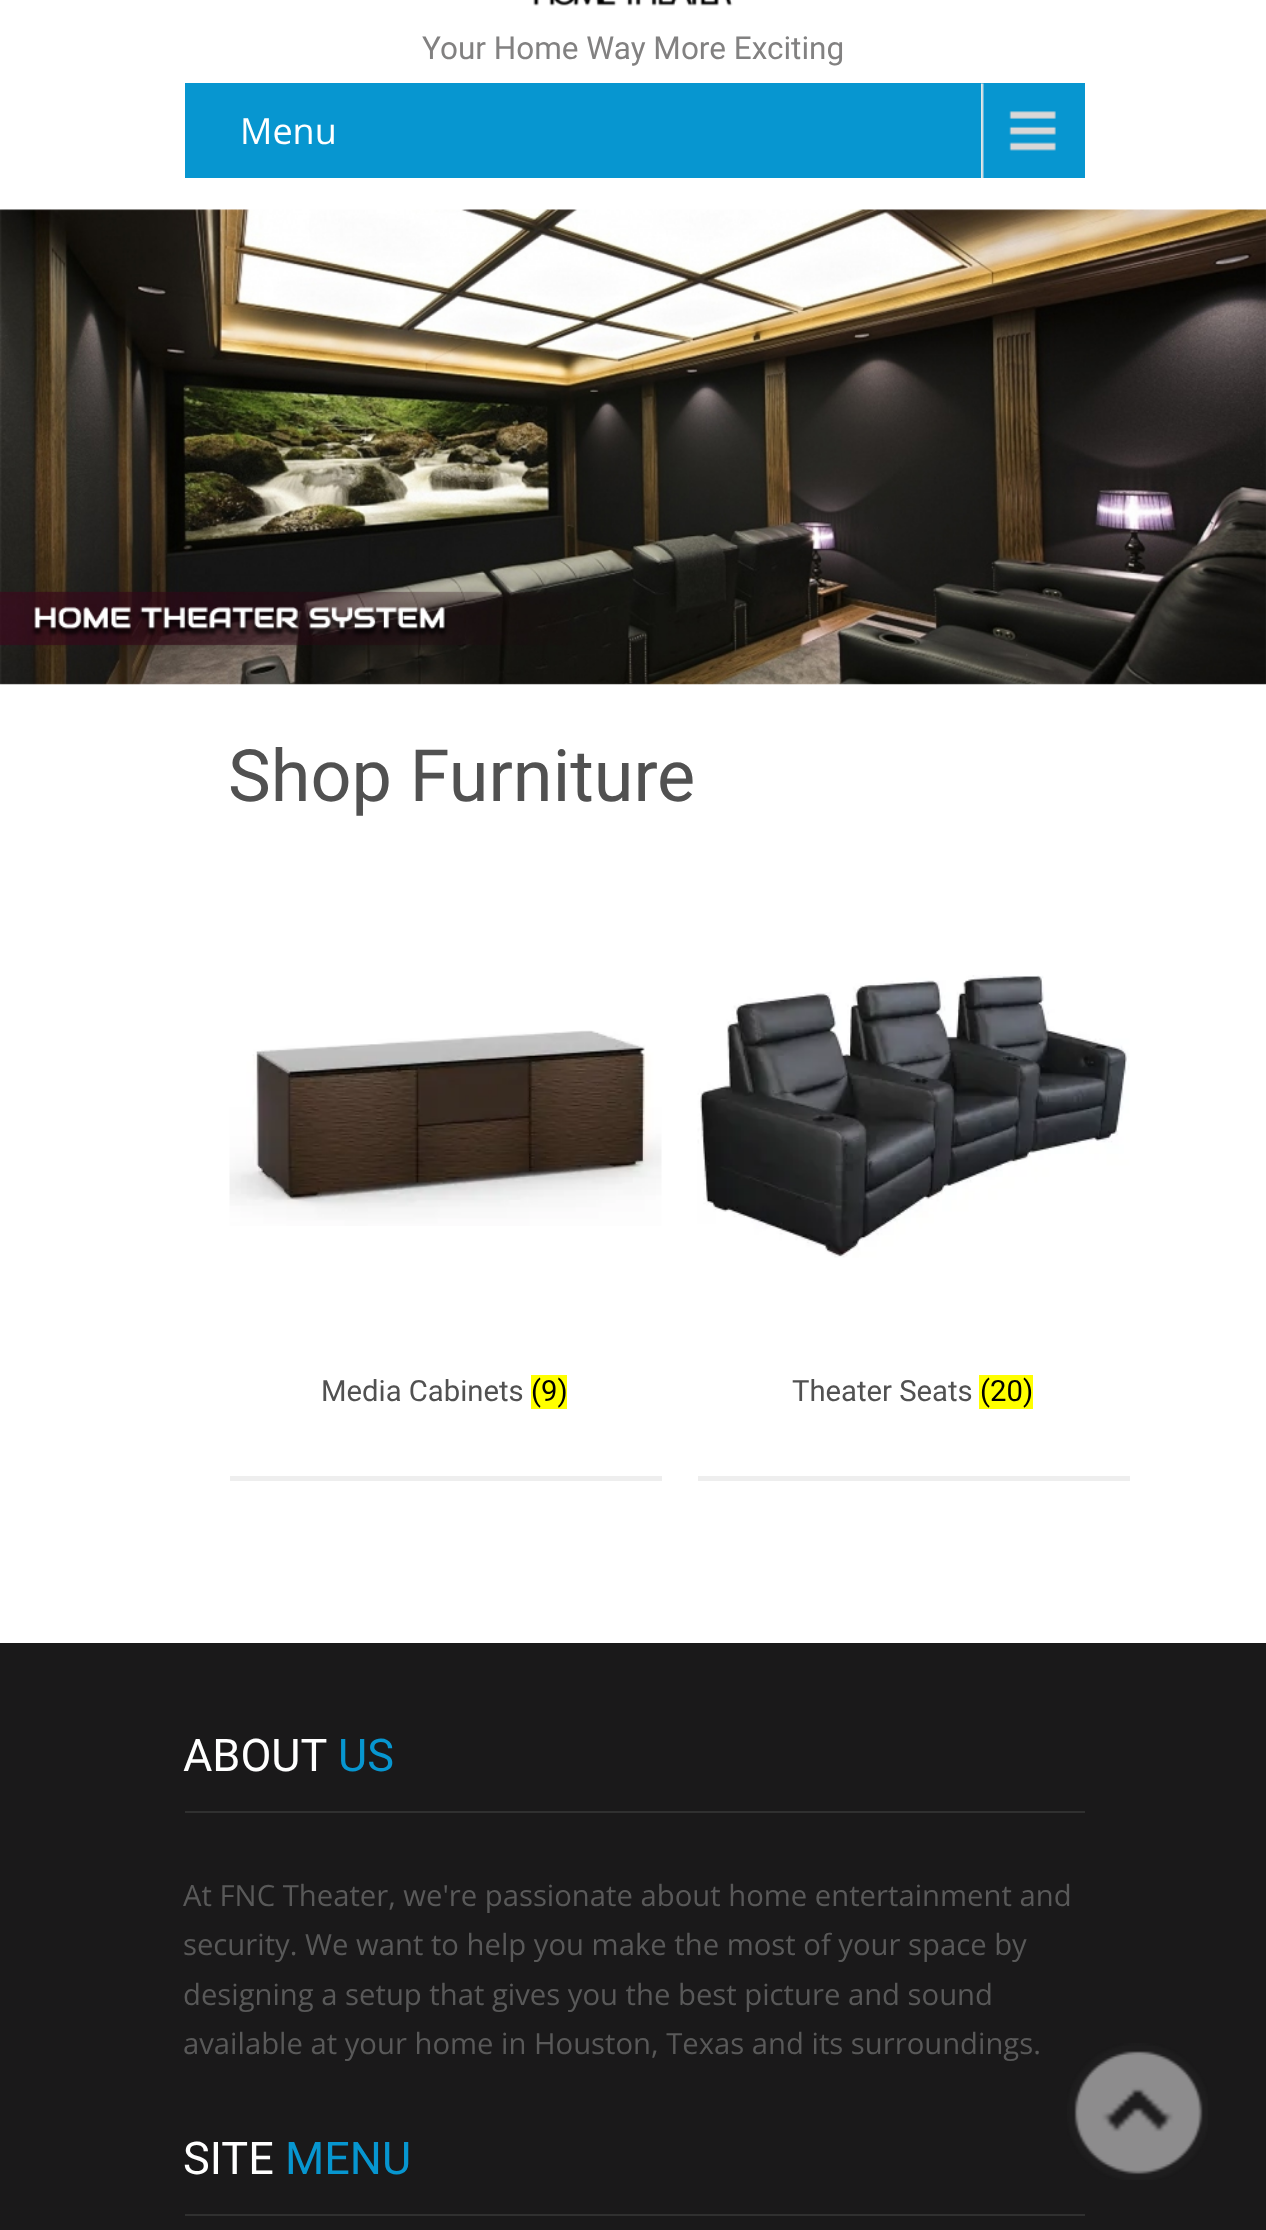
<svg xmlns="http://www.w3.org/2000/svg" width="1266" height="2230">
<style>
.a{font:31.5px Roboto;fill:#828181}
.b{font:36px Open Sans;fill:#fff}
.c{font:72px Roboto;fill:#515151}
.d{font:29.25px Roboto;fill:#515151}
.e{font:29.25px Roboto;fill:#000}
.f{font:45px Roboto;fill:#fff}
.g{font:45px Roboto;fill:#0796d0}
.h{font:29.25px Open Sans;fill:#595959}
</style>
<rect width="100%" height="100%" fill="#fff"/>
<image href="1.png" x="533" y="0" width="200" height="6"/>
<path fill="#0796d0" d="M185 83h900v95H185z"/>
<image href="2.png" x="981" y="83" width="75" height="95"/>
<image href="3.png" x="0" y="209" width="1266" height="476"/>
<path fill="#eee" d="M230 1476h432v5H230z"/>
<image href="4.png" x="229" y="1030" width="433" height="196"/>
<path fill="#ff0" d="M531 1375h36v34H531z"/>
<path fill="#eee" d="M698 1476h432v5H698z"/>
<image href="5.png" x="697" y="975" width="433" height="283"/>
<path fill="#ff0" d="M979 1375h54v34H979z"/>
<path fill="#1a191a" d="M0 1643h1266v587H0z"/>
<path fill="#303030" d="M185 1811h900v2H185z"/>
<path fill="#303030" d="M185 2214h900v2H185z"/>
<image href="6.png" x="1067" y="2043" width="141" height="137"/>
<text class="a" x="422" y="59">Your Home Way More Exciting</text>
<text class="b" x="240" y="144">Menu</text>
<text class="c" x="228" y="801">Shop Furniture</text>
<text class="d" x="321" y="1401">Media Cabinets</text>
<text class="e" x="531" y="1401">(9)</text>
<text class="d" x="792" y="1401">Theater Seats</text>
<text class="e" x="980" y="1401">(20)</text>
<text class="f" x="183" y="1771">ABOUT</text>
<text class="g" x="338" y="1771">US</text>
<text class="h" x="183" y="1906">At FNC Theater, we're passionate about home entertainment and</text>
<text class="h" x="183" y="1955">security. We want to help you make the most of your space by</text>
<text class="h" x="183" y="2005">designing a setup that gives you the best picture and sound</text>
<text class="h" x="183" y="2054">available at your home in Houston, Texas and its surroundings.</text>
<text class="f" x="183" y="2174">SITE</text>
<text class="g" x="285" y="2174">MENU</text>
</svg>
